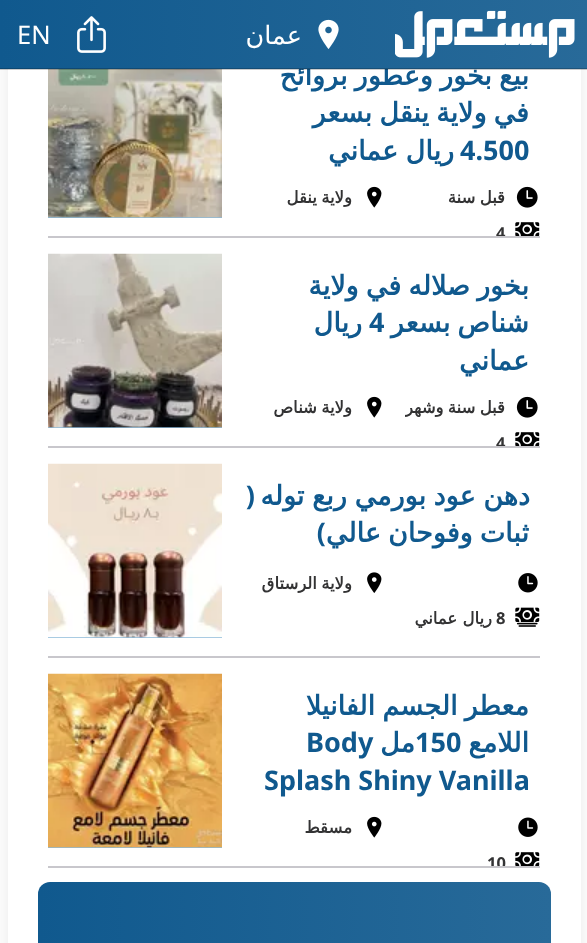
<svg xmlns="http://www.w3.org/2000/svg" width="587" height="943">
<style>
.a{font:bold 27px DejaVu Sans;direction:rtl;fill:#10598e}
.b{font:25.5px DejaVu Sans;direction:rtl;fill:#fff}
.c{font:25.5px Noto Sans;fill:#fff}
.d{font:bold 27px Noto Sans;fill:#10598e}
.e{font:bold 16.5px DejaVu Sans;direction:rtl;fill:#333334}
.f{font:bold 16.5px Noto Sans;fill:#333334}
.g{font:bold 27px Noto Sans;direction:rtl;fill:#10598e}
</style>
<defs>
<linearGradient id="g1" gradientUnits="userSpaceOnUse" x1="38" y1="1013" x2="551" y2="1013"><stop offset="0" stop-color="#10598e"/><stop offset="1" stop-color="#286a99"/></linearGradient>
<clipPath id="clip1"><path d="M245 53h285v117H245z"/></clipPath>
<linearGradient id="g2" gradientUnits="userSpaceOnUse" x1="0" y1="34" x2="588" y2="34"><stop offset="0" stop-color="#10598e"/><stop offset="1" stop-color="#286a99"/></linearGradient>
<clipPath id="clip2"><path d="M416 219h90v17H416z"/></clipPath>
<clipPath id="clip3"><path d="M245 263h285v117H245z"/></clipPath>
<clipPath id="clip4"><path d="M405 395h101v25H405z"/></clipPath>
<clipPath id="clip5"><path d="M416 429h90v17H416z"/></clipPath>
<clipPath id="clip6"><path d="M245 473h285v82H245z"/></clipPath>
<clipPath id="clip7"><path d="M245 683h285v117H245z"/></clipPath>
<clipPath id="clip8"><path d="M405 849h101v17H405z"/></clipPath>
</defs>
<rect width="100%" height="100%" fill="#fafafa"/>
<rect fill="#0000000d" filter="blur(4.5px)" x="8" y="-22" width="573" height="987" rx="8"/>
<path fill="#fff" d="M8 69h573v874H8z"/>
<path fill="#c8c7cc" d="M48 236h492v2H48z"/>
<image href="4.png" x="516" y="186" width="22" height="22"/>
<image href="5.png" x="367" y="186" width="15" height="22"/>
<image href="6.png" x="515" y="222" width="25" height="14"/>
<path fill="#8cbad9" d="M48 217h174v1H48z"/>
<image href="7.png" x="48" y="69" width="174" height="149"/>
<path fill="#c8c7cc" d="M48 446h492v2H48z"/>
<image href="4.png" x="516" y="396" width="22" height="22"/>
<image href="5.png" x="367" y="396" width="15" height="22"/>
<image href="6.png" x="515" y="432" width="25" height="14"/>
<path fill="#8cbad9" d="M48 427h174v1H48z"/>
<image href="8.png" x="48" y="253" width="174" height="175"/>
<path fill="#c8c7cc" d="M48 656h492v2H48z"/>
<image href="9.png" x="518" y="573" width="20" height="20"/>
<image href="10.png" x="367" y="572" width="15" height="21"/>
<image href="11.png" x="515" y="607" width="25" height="20"/>
<path fill="#8cbad9" d="M48 637h174v1H48z"/>
<image href="12.png" x="48" y="463" width="174" height="175"/>
<path fill="#c8c7cc" d="M48 866h492v2H48z"/>
<image href="13.png" x="518" y="817" width="20" height="20"/>
<image href="5.png" x="367" y="816" width="15" height="22"/>
<image href="6.png" x="515" y="852" width="25" height="14"/>
<path fill="#8cbad9" d="M48 847h174v1H48z"/>
<image href="14.png" x="48" y="673" width="174" height="175"/>
<rect fill="url(#g1)" x="38" y="882" width="513" height="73" rx="12"/>
<g clip-path="url(#clip1)">
<text class="a" x="529" y="85" word-spacing="-1.5">بيع بخور وعطور بروائح</text>
</g>
<path fill="url(#g2)" d="M0 0h587v69H0z"/>
<image href="3.png" x="77" y="16" width="29" height="37"/>
<image href="2.png" x="318" y="19" width="21" height="30"/>
<image href="1.png" x="395" y="10" width="180" height="48"/>
<text class="b" x="302" y="44">عمان</text>
<text class="c" x="17" y="44">EN</text>
<path fill="#00000033" d="M0 68h587v2H0z"/>
<g clip-path="url(#clip1)">
<text class="a" x="529" y="122" word-spacing="-1.5">في ولاية ينقل بسعر</text>
</g>
<text class="d" x="460" y="160">4.500</text>
<text class="a" x="454" y="160" word-spacing="-1">ريال عماني</text>
<text class="e" x="505" y="203" word-spacing="-1">قبل سنة</text>
<text class="e" x="352" y="203" word-spacing="-1">ولاية ينقل</text>
<g clip-path="url(#clip2)">
<text class="f" x="496" y="239">4</text>
</g>
<g clip-path="url(#clip3)">
<text class="a" x="529" y="295" word-spacing="-1.5">بخور صلاله في ولاية</text>
</g>
<text class="a" x="529" y="332" word-spacing="-1.5">شناص بسعر</text>
<text class="d" x="369" y="332">4</text>
<text class="a" x="362" y="332">ريال</text>
<text class="a" x="529" y="370">عماني</text>
<g clip-path="url(#clip4)">
<text class="e" x="505" y="413" word-spacing="-1">قبل سنة وشهر</text>
</g>
<text class="e" x="352" y="413" word-spacing="-1">ولاية شناص</text>
<g clip-path="url(#clip5)">
<text class="f" x="496" y="449">4</text>
</g>
<g clip-path="url(#clip6)">
<text class="a" x="530" y="505" word-spacing="-1">دهن عود بورمي ربع توله</text>
</g>
<text class="g" x="255" y="505">(</text>
<g clip-path="url(#clip6)">
<text class="a" x="529" y="542" word-spacing="-1.5">ثبات وفوحان عالي</text>
</g>
<text class="g" x="326" y="542">)</text>
<text class="e" x="352" y="589" word-spacing="-1">ولاية الرستاق</text>
<text class="f" x="496" y="624">8</text>
<text class="e" x="492" y="624">ريال عماني</text>
<g clip-path="url(#clip7)">
<text class="a" x="529" y="715" word-spacing="-1.5">معطر الجسم الفانيلا</text>
</g>
<text class="a" x="529" y="752">اللامع</text>
<text class="d" x="415" y="752">150</text>
<text class="a" x="415" y="752">مل</text>
<text class="d" x="306" y="752">Body</text>
<text class="d" x="264" y="790">Splash Shiny Vanilla</text>
<text class="e" x="352" y="833">مسقط</text>
<g clip-path="url(#clip8)">
<text class="f" x="487" y="869">10</text>
</g>
</svg>
